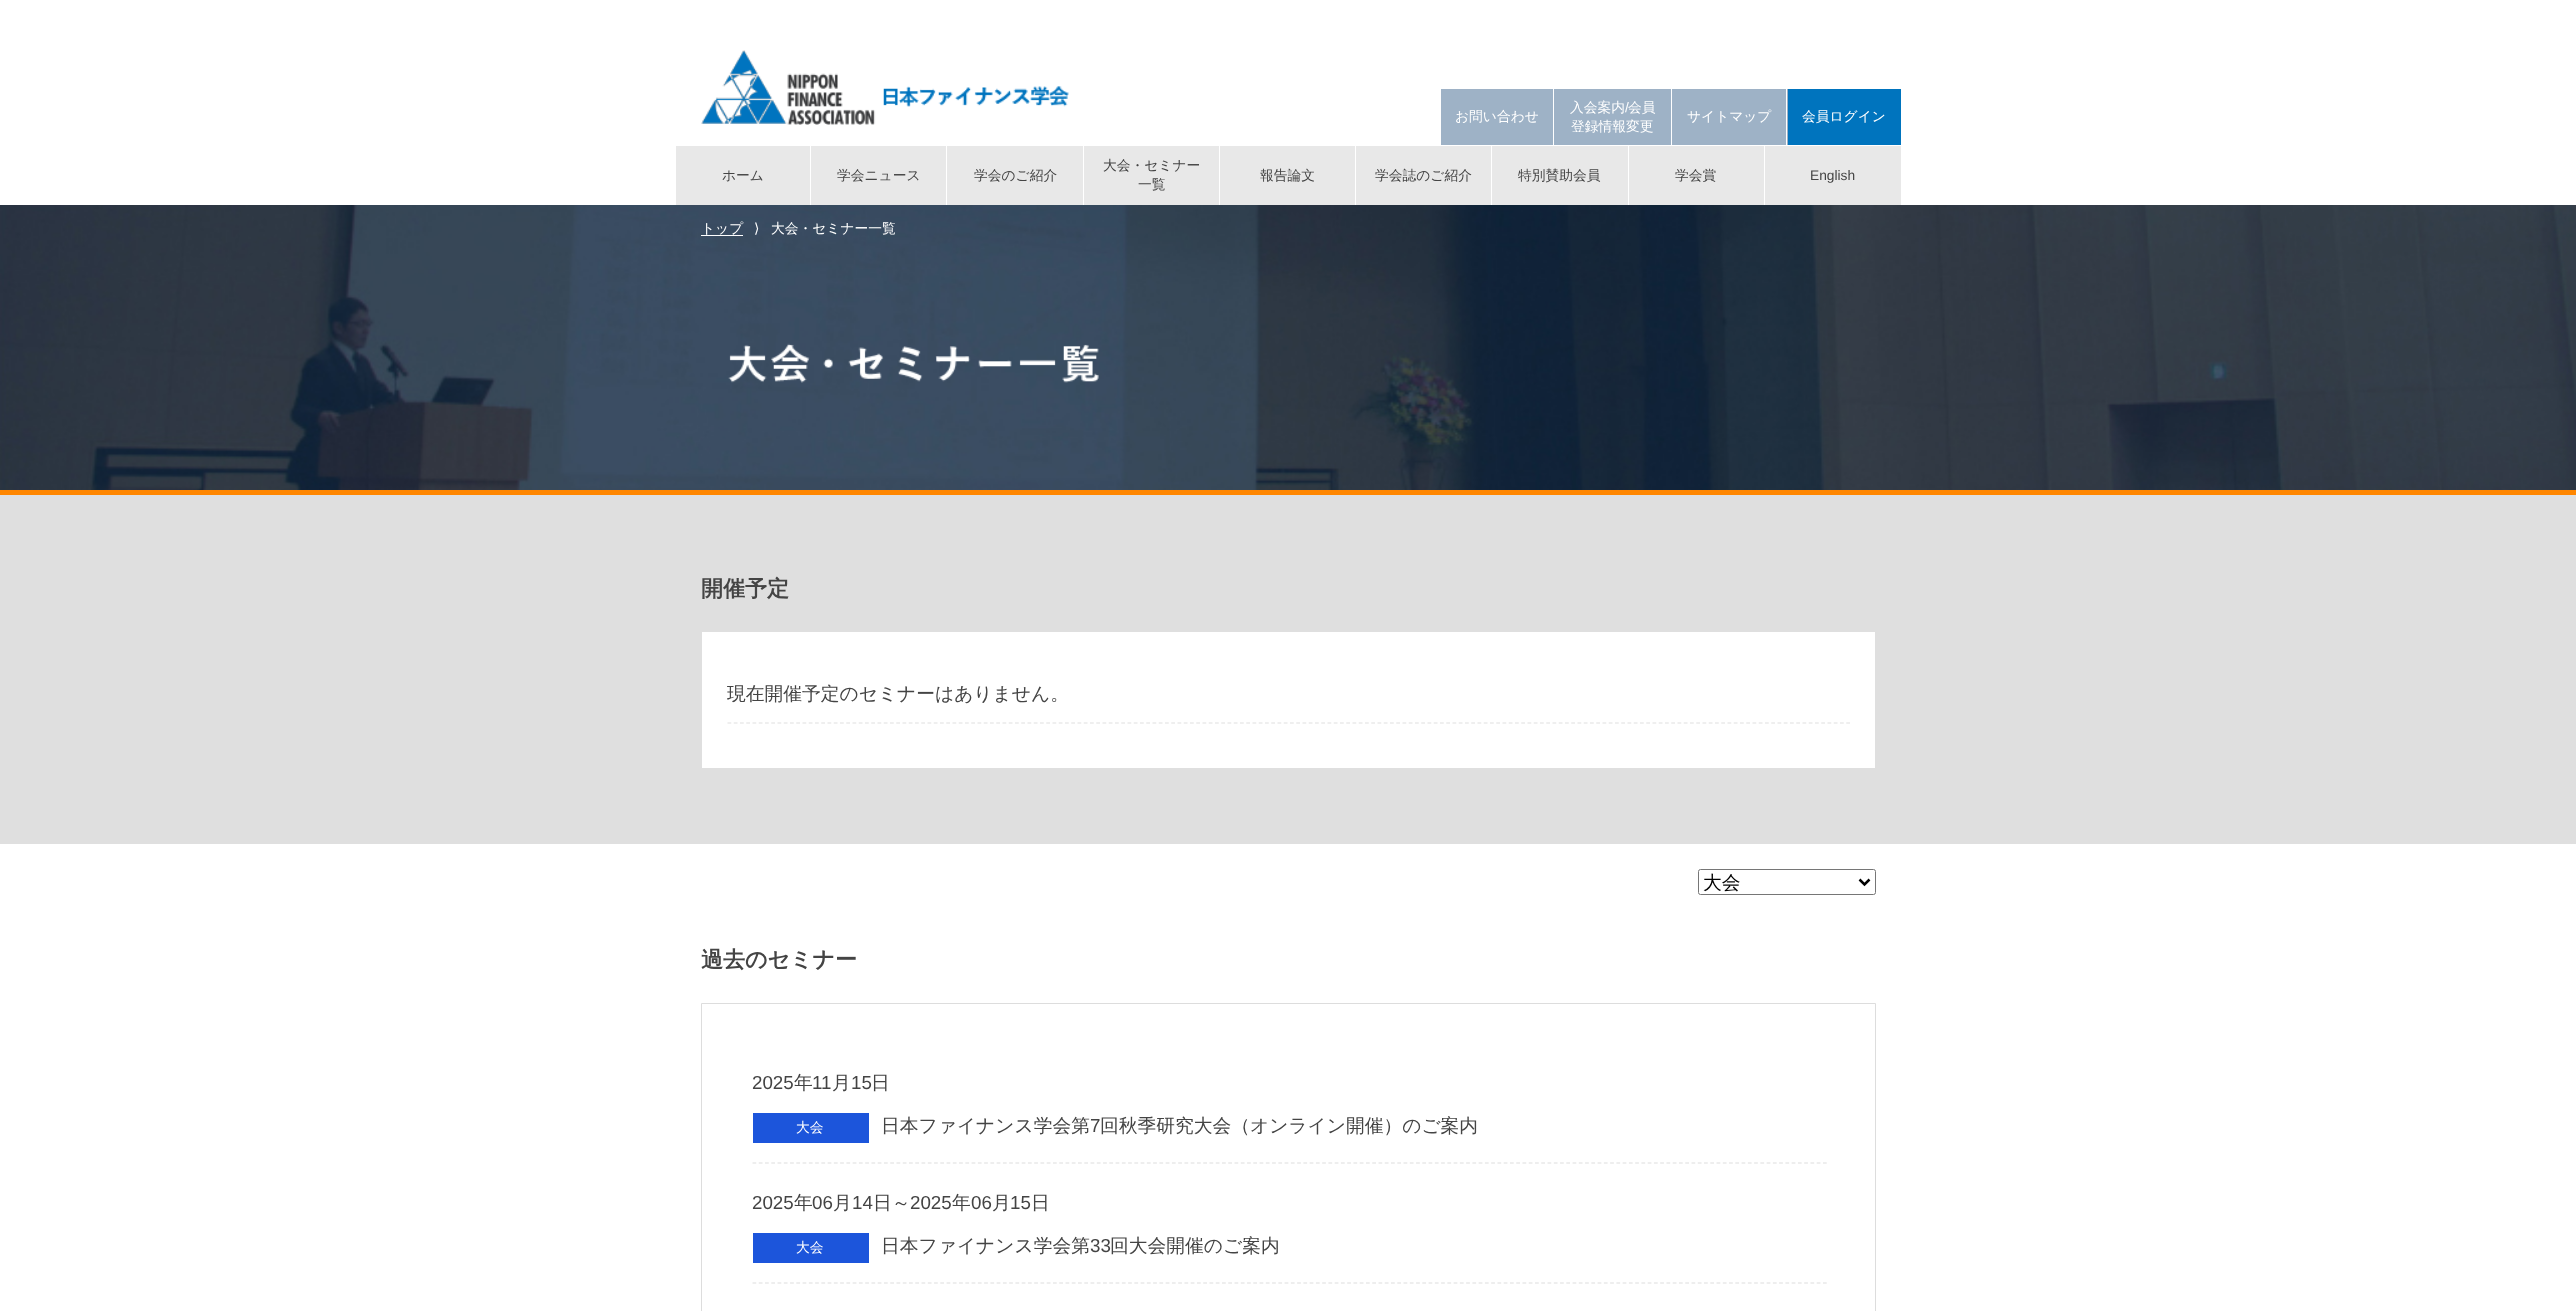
<svg xmlns="http://www.w3.org/2000/svg" width="2576" height="1311">
<style>
.a{font:500 13.75px WenQuanYi Zen Hei;fill:#fff}
.b{font:13.75px Liberation Sans;fill:#fff}
.c{font:500 13.75px WenQuanYi Zen Hei;fill:#444}
.d{font:13.75px Liberation Sans;fill:#444}
.e{font:13.75px DejaVu Sans;fill:#fff}
.f{font:bold 22px WenQuanYi Zen Hei;fill:#444}
.g{font:500 18.75px WenQuanYi Zen Hei;fill:#444}
.h{font:500 18.75px WenQuanYi Zen Hei;fill:#000}
.i{font:18.75px Liberation Sans;fill:#444}
</style>
<rect width="100%" height="100%" fill="#fff"/>
<image href="1.png" x="701" y="50" width="368" height="75"/>
<path fill="#9eb2c6" d="M1441 89h112v56H1441z"/>
<path fill="#9eb2c6" d="M1554 89h234v56H1554z"/>
<path fill="#fff" d="M1671 89h1v56H1671z"/>
<path fill="#fff" d="M1786 89h1v56H1786z"/>
<path fill="#0074be" d="M1788 89h113v56H1788z"/>
<path fill="#e8e8e8" d="M676 146h134v59H676z"/>
<path fill="#e8e8e8" d="M811 146h272v59H811z"/>
<path fill="#fff" d="M946 146h1v59H946z"/>
<path fill="#e8e8e8" d="M1084 146h135v59H1084z"/>
<path fill="#e8e8e8" d="M1220 146h135v59H1220z"/>
<path fill="#e8e8e8" d="M1356 146h272v59H1356z"/>
<path fill="#fff" d="M1491 146h1v59H1491z"/>
<path fill="#e8e8e8" d="M1629 146h135v59H1629z"/>
<path fill="#e8e8e8" d="M1765 146h136v59H1765z"/>
<image href="2.png" x="0" y="205" width="2576" height="285"/>
<path fill="#ff8600" d="M0 490h2576v5H0z"/>
<path fill="#fff" d="M701 235h42v1H701z"/>
<image href="3.png" x="728" y="343" width="371" height="40"/>
<path fill="#dfdfdf" d="M0 495h2576v349H0z"/>
<path fill="#fff" d="M702 632h1173v136H702z"/>
<path fill="none" stroke="#dfdfdf" stroke-width="1.2" stroke-dasharray="3.75 2.5" d="M727.5 723h1122.5"/>
<rect fill="none" stroke="#767676" x="1698.5" y="869.5" width="177" height="25" rx="2"/>
<path fill="none" stroke="#000" stroke-width="2.5" d="M1859.5 879.5l5 5l5-5"/>
<path fill="none" stroke="#ddd" d="M701.5 1003.5h1174v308H701.5z"/>
<path fill="none" stroke="#ddd" stroke-width="1.2" stroke-dasharray="3.75 2.51" d="M752.5 1163h1075"/>
<path fill="#1c55db" d="M753 1113h116v30H753z"/>
<path fill="none" stroke="#ddd" stroke-width="1.2" stroke-dasharray="3.75 2.51" d="M752.5 1283h1075"/>
<path fill="#1c55db" d="M753 1233h116v30H753z"/>
<text class="a" x="1455" y="121">お問い合わせ</text>
<text class="a" x="1570" y="112">入会案内</text>
<text class="b" x="1625" y="112">/</text>
<text class="a" x="1628" y="112">会員</text>
<text class="a" x="1571" y="131">登録情報変更</text>
<text class="a" x="1687" y="121">サイトマップ</text>
<text class="a" x="1802" y="121">会員ログイン</text>
<text class="c" x="722" y="180">ホーム</text>
<text class="c" x="837" y="180">学会ニュース</text>
<text class="c" x="974" y="180">学会のご紹介</text>
<text class="c" x="1103" y="170">大会・セミナー</text>
<text class="c" x="1138" y="189">一覧</text>
<text class="c" x="1260" y="180">報告論文</text>
<text class="c" x="1375" y="180">学会誌のご紹介</text>
<text class="c" x="1518" y="180">特別賛助会員</text>
<text class="c" x="1675" y="180">学会賞</text>
<text class="d" x="1810" y="180">English</text>
<text class="a" x="701" y="233">トップ</text>
<text class="e" x="754" y="233">⟩</text>
<text class="a" x="771" y="233">大会・セミナー一覧</text>
<text class="f" x="701" y="596">開催予定</text>
<text class="g" x="727" y="700">現在開催予定のセミナーはありません。</text>
<text class="h" x="1703" y="889">大会</text>
<text class="f" x="701" y="967">過去のセミナー</text>
<text class="i" x="752" y="1089">2025</text>
<text class="g" x="794" y="1089">年</text>
<text class="i" x="812" y="1089">11</text>
<text class="g" x="832" y="1089">月</text>
<text class="i" x="851" y="1089">15</text>
<text class="g" x="871" y="1089">日</text>
<text class="a" x="796" y="1132">大会</text>
<text class="g" x="881" y="1132">日本ファイナンス学会第</text>
<text class="i" x="1090" y="1132">7</text>
<text class="g" x="1100" y="1132">回秋季研究大会（オンライン開催）のご案内</text>
<text class="i" x="752" y="1209">2025</text>
<text class="g" x="794" y="1209">年</text>
<text class="i" x="812" y="1209">06</text>
<text class="g" x="833" y="1209">月</text>
<text class="i" x="852" y="1209">14</text>
<text class="g" x="873" y="1209">日～</text>
<text class="i" x="910" y="1209">2025</text>
<text class="g" x="952" y="1209">年</text>
<text class="i" x="971" y="1209">06</text>
<text class="g" x="992" y="1209">月</text>
<text class="i" x="1010" y="1209">15</text>
<text class="g" x="1031" y="1209">日</text>
<text class="a" x="796" y="1252">大会</text>
<text class="g" x="881" y="1252">日本ファイナンス学会第</text>
<text class="i" x="1090" y="1252">33</text>
<text class="g" x="1110" y="1252">回大会開催のご案内</text>
</svg>
